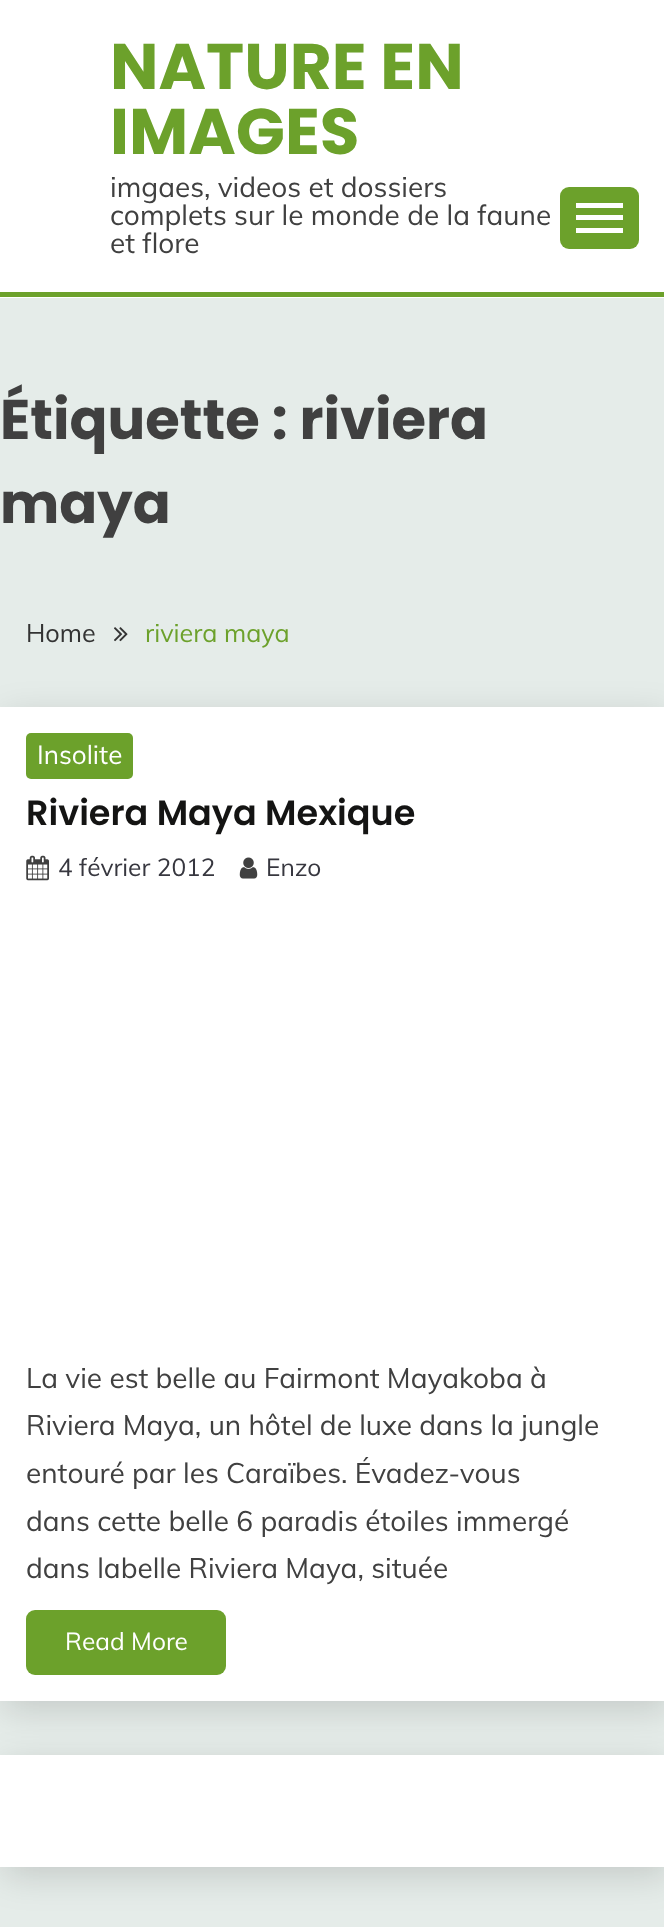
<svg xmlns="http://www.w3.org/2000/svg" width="664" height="1927">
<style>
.a{font:bold 64.5px Poppins;fill:#6ca12b}
.b{font:28px Muli;fill:#404040}
.c{font:bold 56px Poppins;fill:#404040}
.d{font:25.25px Muli;fill:#333}
.e{font:25.25px Muli;fill:#6ca12b}
.f{font:26px Muli;fill:#fff}
.g{font:600 35px Poppins;fill:#141413}
.h{font:24.5px Muli;fill:#37373f}
.i{font:24.5px Muli;fill:#fff}
</style>
<rect width="100%" height="100%" fill="#e5ece9"/>
<path fill="#fff" d="M0 0h664v298H0z"/>
<rect fill="#6ca12b" x="560" y="187" width="79" height="62" rx="9"/>
<path fill="#fff" d="M576 203h47v5H576z"/>
<path fill="#fff" d="M576 215h47v5H576z"/>
<path fill="#fff" d="M576 228h47v5H576z"/>
<path fill="#6ca12b" d="M0 292h664v5H0z"/>
<image href="1.png" x="114" y="627" width="14" height="15"/>
<path fill="#00000024" filter="blur(17.5px)" d="M4 716h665v994H4z"/>
<path fill="#fff" d="M0 707h664v994H0z"/>
<rect fill="#6ca12b" x="26" y="733" width="107" height="46" rx="5"/>
<image href="2.png" x="26" y="855" width="23" height="26"/>
<image href="3.png" x="239" y="857" width="19" height="22"/>
<rect fill="#6ca12b" x="26" y="1610" width="200" height="65" rx="9"/>
<path fill="#00000024" filter="blur(17.5px)" d="M4 1764h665v112H4z"/>
<path fill="#fff" d="M0 1755h664v112H0z"/>
<text class="a" x="110" y="89">NATURE EN</text>
<text class="a" x="110" y="154">IMAGES</text>
<text class="b" x="110" y="197">imgaes, videos et dossiers</text>
<text class="b" x="110" y="225">complets sur le monde de la faune</text>
<text class="b" x="110" y="253">et flore</text>
<text class="c" x="0" y="439">Étiquette : riviera</text>
<text class="c" x="0" y="523">maya</text>
<text class="d" x="26" y="642">Home</text>
<text class="e" x="145" y="642">riviera maya</text>
<text class="f" x="37" y="764">Insolite</text>
<text class="g" x="26" y="825">Riviera Maya Mexique</text>
<text class="h" x="58" y="876">4 février 2012</text>
<text class="h" x="266" y="876">Enzo</text>
<text class="b" x="26" y="1388">La vie est belle au Fairmont Mayakoba à</text>
<text class="b" x="26" y="1435">Riviera Maya, un hôtel de luxe dans la jungle</text>
<text class="b" x="26" y="1483">entouré par les Caraïbes. Évadez-vous</text>
<text class="b" x="26" y="1531">dans cette belle 6 paradis étoiles immergé</text>
<text class="b" x="26" y="1578">dans labelle Riviera Maya, située</text>
<text class="i" x="65" y="1650">Read More</text>
</svg>
